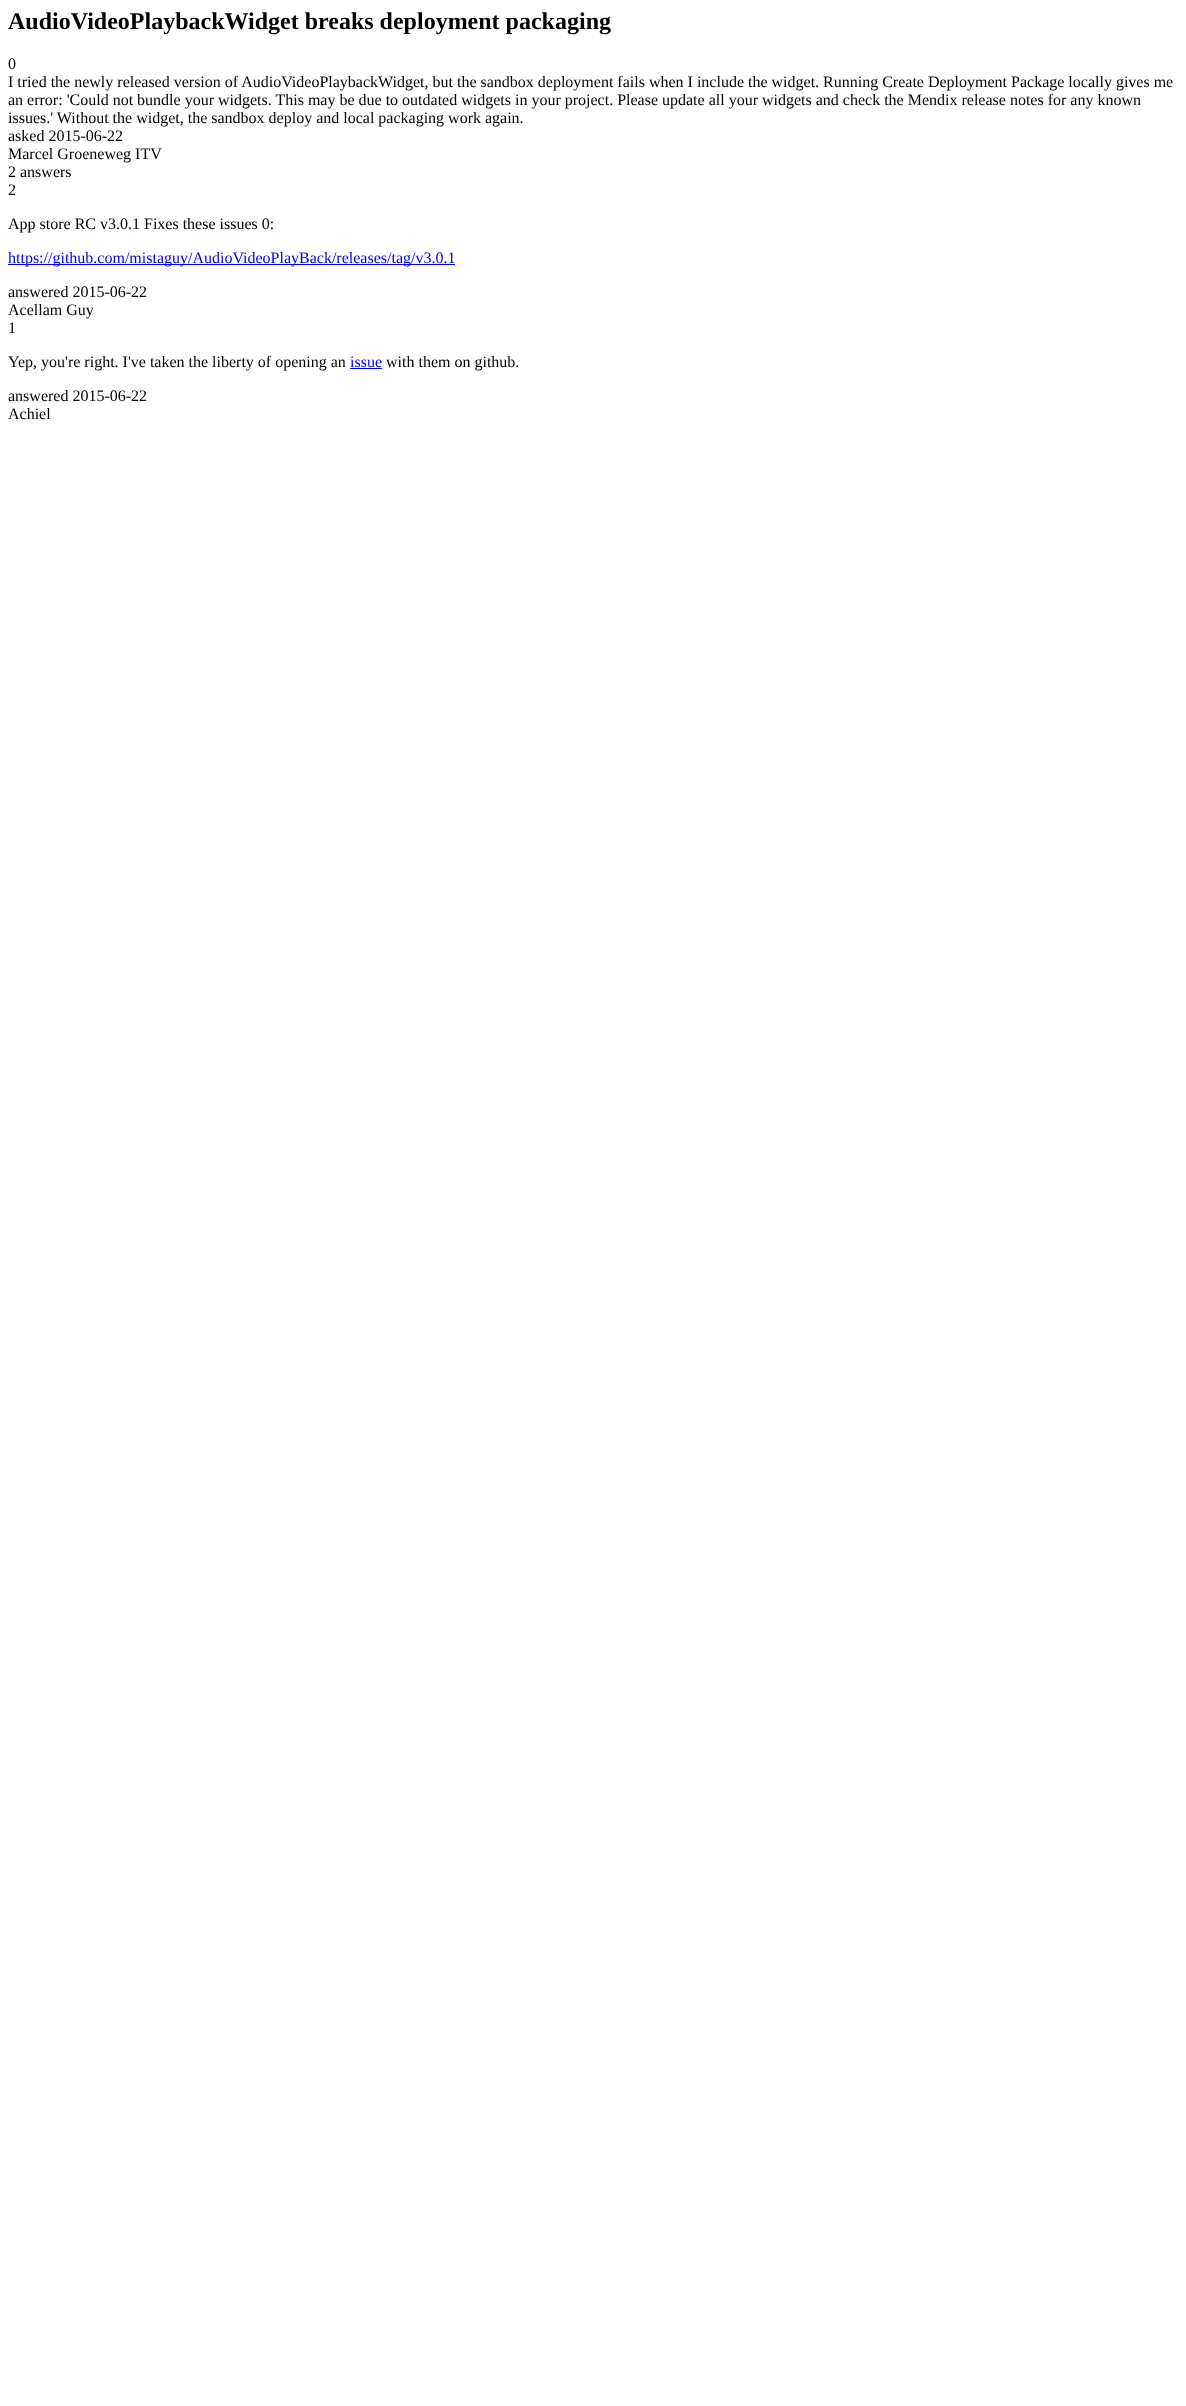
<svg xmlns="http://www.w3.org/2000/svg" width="1186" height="2406">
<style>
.a{font:bold 24px Liberation Serif;fill:#000}
.b{font:16px Liberation Serif;fill:#000}
.c{font:16px Liberation Serif;fill:#00e}
</style>
<rect width="100%" height="100%" fill="#fff"/>
<path fill="#00e" d="M8 264h447v1H8z"/>
<path fill="#00e" d="M350 368h32v1H350z"/>
<text class="a" x="8" y="29">AudioVideoPlaybackWidget breaks deployment packaging</text>
<text class="b" x="8" y="69">0</text>
<text class="b" x="8" y="87">I tried the newly released version of AudioVideoPlaybackWidget, but the sandbox deployment fails when I include the widget. Running Create Deployment Package locally gives me</text>
<text class="b" x="8" y="105">an error: 'Could not bundle your widgets. This may be due to outdated widgets in your project. Please update all your widgets and check the Mendix release notes for any known</text>
<text class="b" x="8" y="123">issues.' Without the widget, the sandbox deploy and local packaging work again.</text>
<text class="b" x="8" y="141">asked 2015-06-22</text>
<text class="b" x="8" y="159">Marcel Groeneweg ITV</text>
<text class="b" x="8" y="177">2 answers</text>
<text class="b" x="8" y="195">2</text>
<text class="b" x="8" y="229">App store RC v3.0.1 Fixes these issues 0:</text>
<text class="c" x="8" y="263">https://github.com/mistaguy/AudioVideoPlayBack/releases/tag/v3.0.1</text>
<text class="b" x="8" y="297">answered 2015-06-22</text>
<text class="b" x="8" y="315">Acellam Guy</text>
<text class="b" x="8" y="333">1</text>
<text class="b" x="8" y="367">Yep, you're right. I've taken the liberty of opening an</text>
<text class="c" x="350" y="367">issue</text>
<text class="b" x="386" y="367">with them on github.</text>
<text class="b" x="8" y="401">answered 2015-06-22</text>
<text class="b" x="8" y="419">Achiel</text>
</svg>
